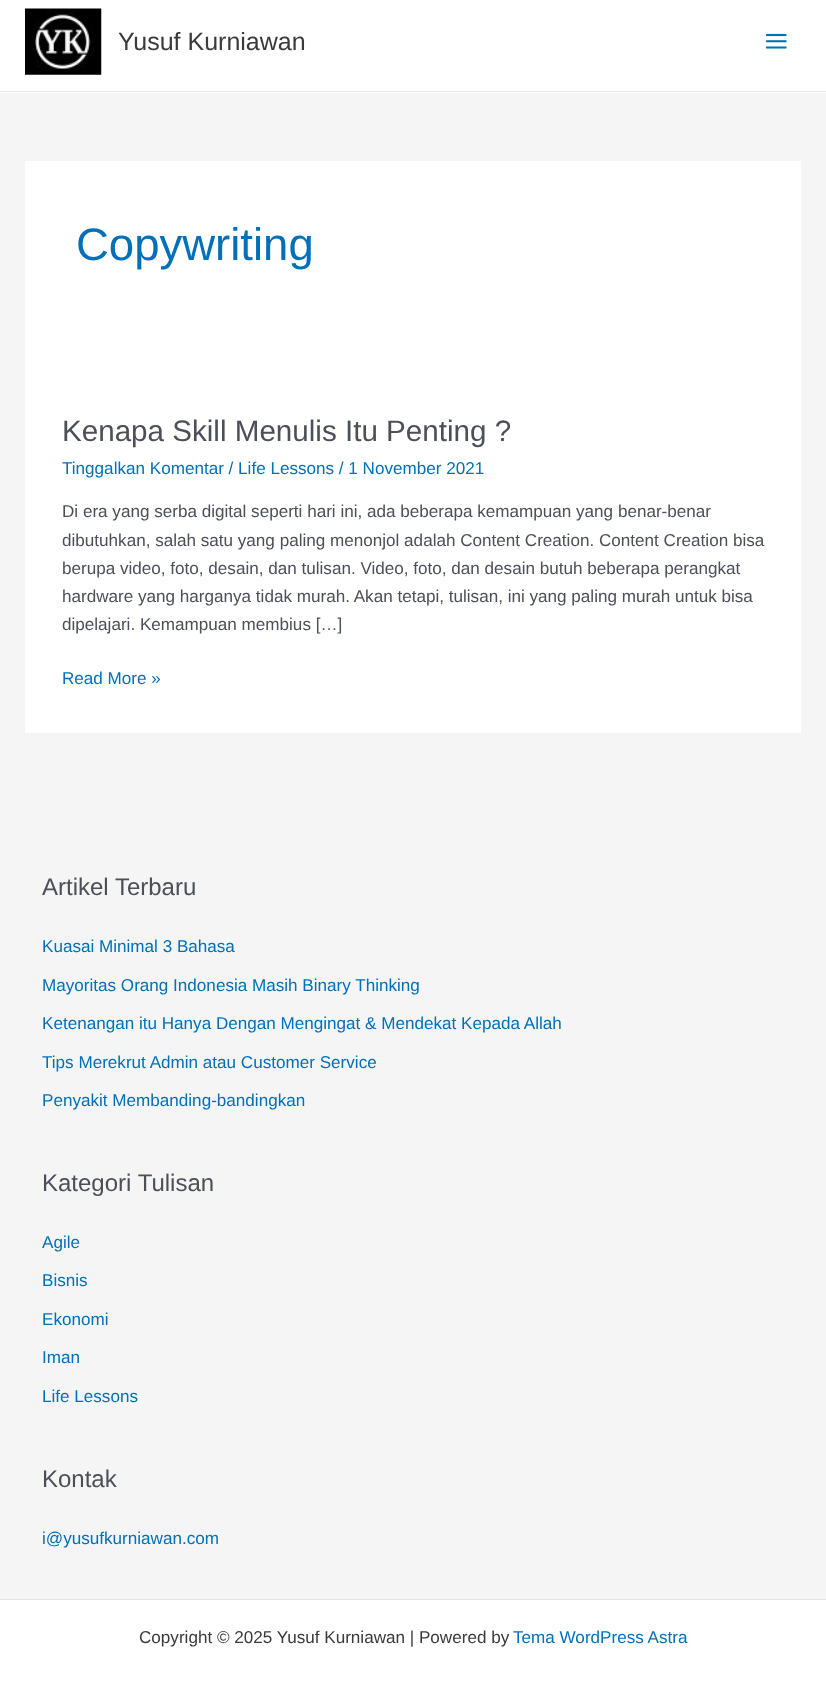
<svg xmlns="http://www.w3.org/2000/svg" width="826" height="1684">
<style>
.a{font:25px Liberation Sans;fill:#3a3a3a}
.b{font:45.5px Liberation Sans;fill:#0170b9}
.c{font:29.6px Liberation Sans;fill:#4b4f58}
.d{font:17.1px Liberation Sans;fill:#0170b9}
.e{font:17.1px Liberation Sans;fill:#4b4f58}
.f{font:24px Liberation Sans;fill:#4b4f58}
.g{font:17.1px Liberation Sans;fill:#3a3a3a}
</style>
<rect width="100%" height="100%" fill="#f5f5f5"/>
<path fill="#fff" d="M0 0h826v93H0z"/>
<path fill="#e5e5e5" d="M0 91h826v1H0z"/>
<image href="1.png" x="25" y="8" width="77" height="67"/>
<image href="2.png" x="765" y="33" width="22" height="16"/>
<path fill="#fff" d="M25 161h776v572H25z"/>
<path fill="#fff" d="M0 1600h826v84H0z"/>
<path fill="#e5e5e5" d="M0 1599h826v1H0z"/>
<text class="a" x="118" y="50">Yusuf Kurniawan</text>
<text class="b" x="76" y="260">Copywriting</text>
<text class="c" x="62" y="441">Kenapa Skill Menulis Itu Penting ?</text>
<text class="d" x="62" y="474">Tinggalkan Komentar / Life Lessons / 1 November 2021</text>
<text class="e" x="62" y="517">Di era yang serba digital seperti hari ini, ada beberapa kemampuan yang benar-benar</text>
<text class="e" x="62" y="546">dibutuhkan, salah satu yang paling menonjol adalah Content Creation. Content Creation bisa</text>
<text class="e" x="62" y="574">berupa video, foto, desain, dan tulisan. Video, foto, dan desain butuh beberapa perangkat</text>
<text class="e" x="62" y="602">hardware yang harganya tidak murah. Akan tetapi, tulisan, ini yang paling murah untuk bisa</text>
<text class="e" x="62" y="630">dipelajari. Kemampuan membius […]</text>
<text class="d" x="62" y="684">Read More »</text>
<text class="f" x="42" y="895">Artikel Terbaru</text>
<text class="d" x="42" y="952">Kuasai Minimal 3 Bahasa</text>
<text class="d" x="42" y="991">Mayoritas Orang Indonesia Masih Binary Thinking</text>
<text class="d" x="42" y="1029">Ketenangan itu Hanya Dengan Mengingat &amp; Mendekat Kepada Allah</text>
<text class="d" x="42" y="1068">Tips Merekrut Admin atau Customer Service</text>
<text class="d" x="42" y="1106">Penyakit Membanding-bandingkan</text>
<text class="f" x="42" y="1191">Kategori Tulisan</text>
<text class="d" x="42" y="1248">Agile</text>
<text class="d" x="42" y="1286">Bisnis</text>
<text class="d" x="42" y="1325">Ekonomi</text>
<text class="d" x="42" y="1363">Iman</text>
<text class="d" x="42" y="1402">Life Lessons</text>
<text class="f" x="42" y="1487">Kontak</text>
<text class="d" x="42" y="1544">i@yusufkurniawan.com</text>
<text class="g" x="139" y="1643">Copyright © 2025 Yusuf Kurniawan | Powered by</text>
<text class="d" x="513" y="1643">Tema WordPress Astra</text>
</svg>
